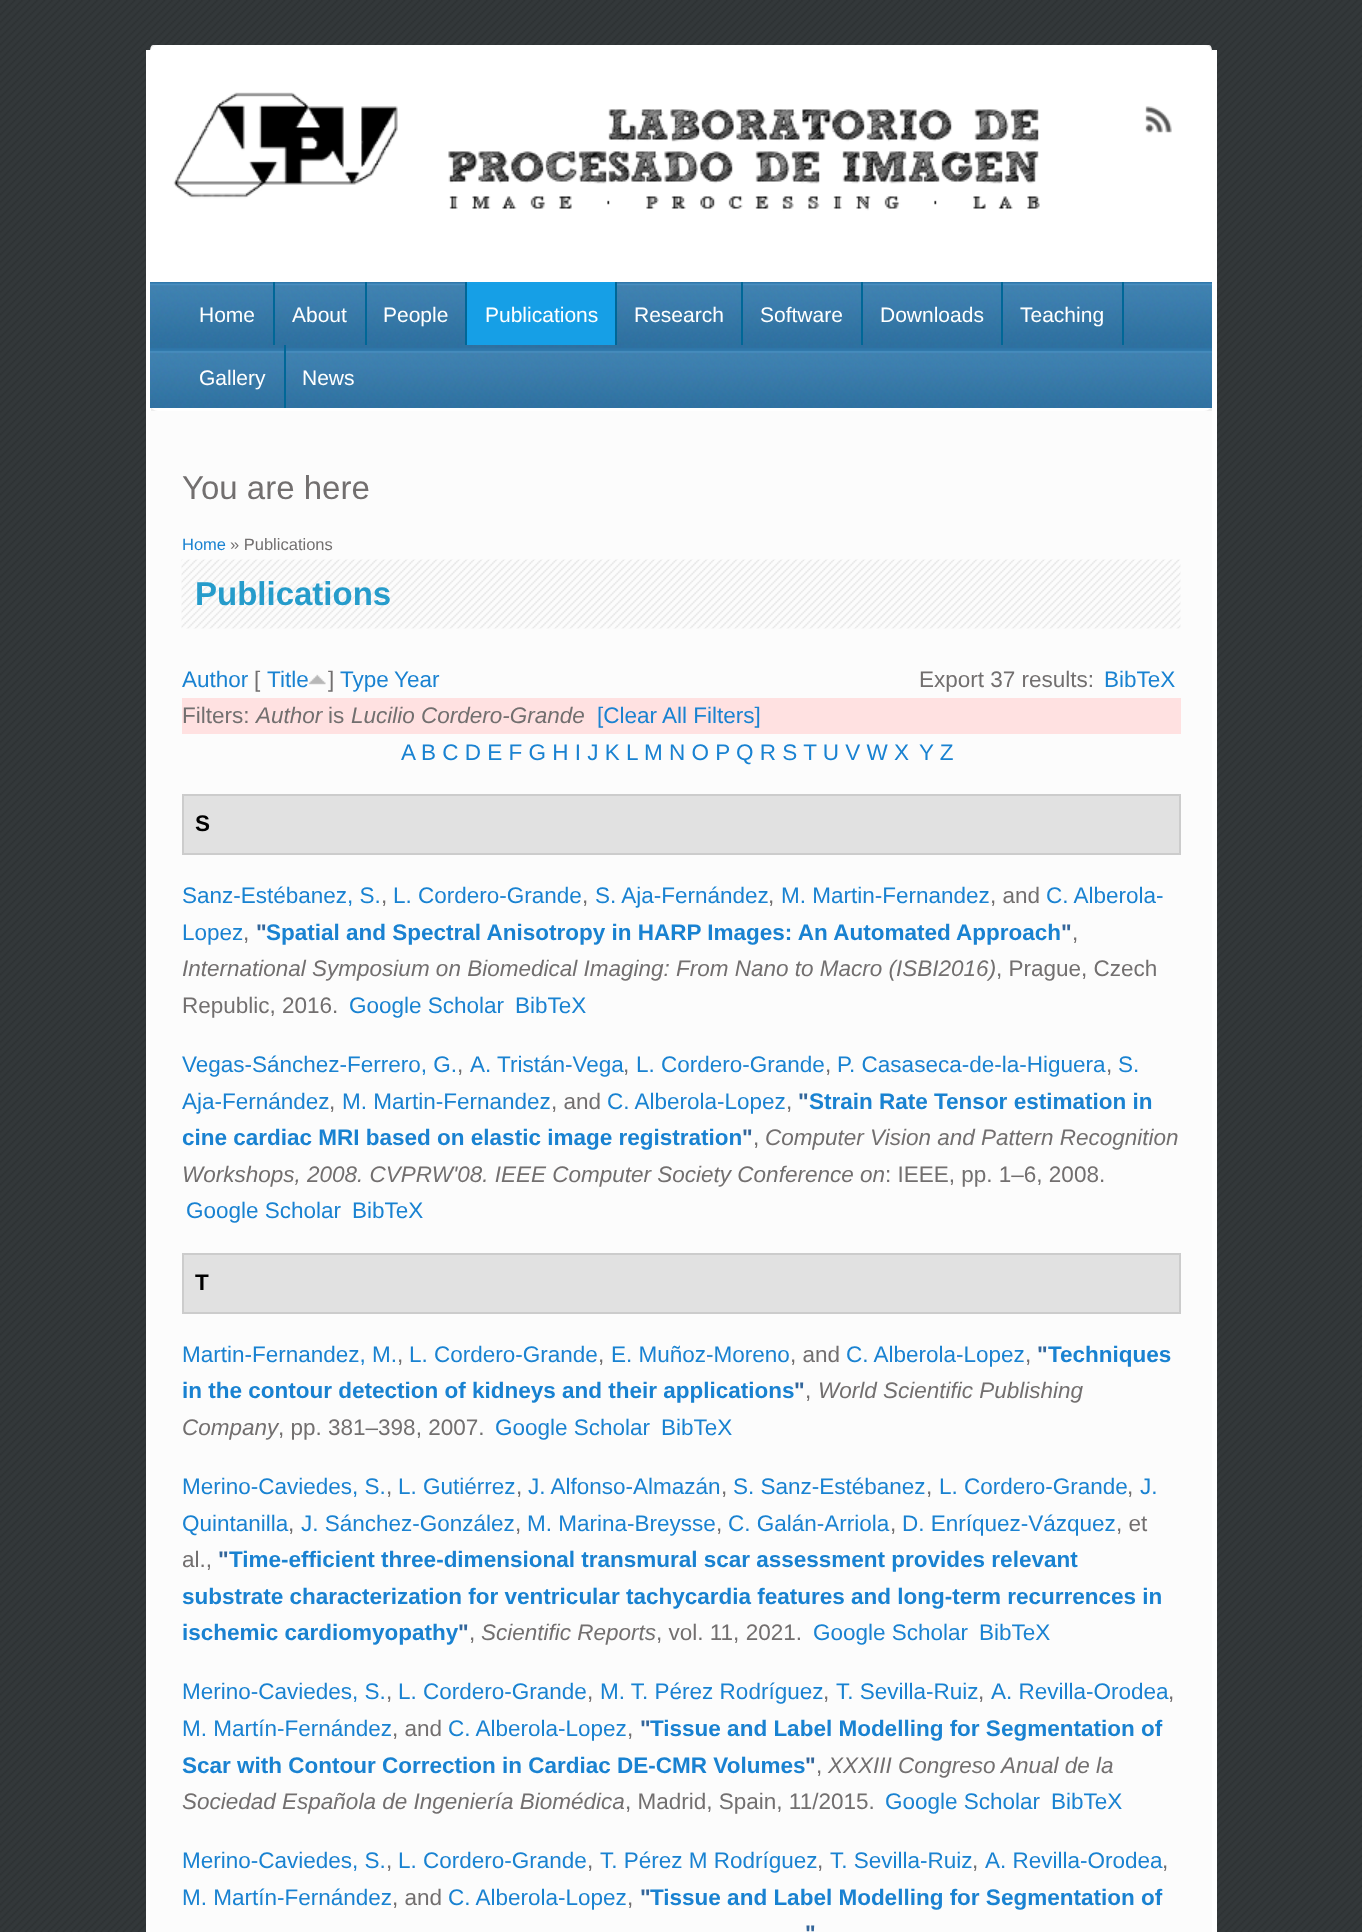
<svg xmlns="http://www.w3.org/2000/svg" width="1362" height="1932">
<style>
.a{font:21px Liberation Sans;fill:#fff}
.b{font:33px Liberation Sans;fill:#726f6f}
.c{font:16.5px Liberation Sans;fill:#1982d1}
.d{font:16.5px Liberation Sans;fill:#726f6f}
.e{font:bold 33px Liberation Sans;fill:#269ccb}
.f{font:22.5px Liberation Sans;fill:#1982d1}
.g{font:22.5px Liberation Sans;fill:#726f6f}
.h{font:italic 22.5px Liberation Sans;fill:#726f6f}
.i{font:bold 22.5px Liberation Sans;fill:#000}
.j{font:bold 22.5px Liberation Sans;fill:#336599}
.k{font:bold 22.5px Liberation Sans;fill:#1982d1}
</style>
<rect width="100%" height="100%" fill="#33383a"/>
<image href="1.png" x="0" y="0" width="1362" height="1932"/>
<path fill="#eee" d="M153 45h1056c2 0 3 3 3 7v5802c0 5-1 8-3 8h-1056c-2 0-3-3-3-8v-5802c0-4 1-7 3-7z"/>
<path fill="#fff" d="M1212 50h5v1882H1212z"/>
<path fill="#fff" d="M146 50h5v1882H146z"/>
<rect fill="#fff" x="150" y="45" width="1062" height="366" rx="8"/>
<image href="2.png" x="173" y="92" width="867" height="119"/>
<image href="3.png" x="1145" y="106" width="27" height="27"/>
<image href="4.png" x="150" y="282" width="1062" height="126"/>
<path fill="#006797" d="M273 282h2v63H273z"/>
<path fill="#006797" d="M365 282h2v63H365z"/>
<path fill="#006797" d="M465 282h2v63H465z"/>
<path fill="#006797" d="M615 282h2v63H615z"/>
<path fill="#169fe6" d="M467 282h148v63H467z"/>
<path fill="#006797" d="M741 282h2v63H741z"/>
<path fill="#006797" d="M861 282h2v63H861z"/>
<path fill="#006797" d="M1001 282h2v63H1001z"/>
<path fill="#006797" d="M1122 282h2v63H1122z"/>
<path fill="#006797" d="M284 345h2v63H284z"/>
<path fill="#fcfcfc" d="M150 411h1062v1521H150z"/>
<image href="5.png" x="181" y="559" width="1000" height="70"/>
<image href="6.png" x="308" y="674" width="18" height="11"/>
<path fill="#ffe1e1" d="M182 698h999v36H182z"/>
<path fill="#e1e1e1" stroke="#ccc" stroke-width="2" d="M183 795h997v59H183z"/>
<path fill="#e1e1e1" stroke="#ccc" stroke-width="2" d="M183 1254h997v59H183z"/>
<text class="a" x="199" y="322">Home</text>
<text class="a" x="292" y="322">About</text>
<text class="a" x="383" y="322">People</text>
<text class="a" x="485" y="322">Publications</text>
<text class="a" x="634" y="322">Research</text>
<text class="a" x="760" y="322">Software</text>
<text class="a" x="880" y="322">Downloads</text>
<text class="a" x="1020" y="322">Teaching</text>
<text class="a" x="199" y="385">Gallery</text>
<text class="a" x="302" y="385">News</text>
<text class="b" x="182" y="499">You are here</text>
<text class="c" x="182" y="550">Home</text>
<text class="d" x="230" y="550">» Publications</text>
<text class="e" x="195" y="605">Publications</text>
<text class="f" x="182" y="687">Author</text>
<text class="g" x="254" y="687">[</text>
<text class="f" x="267" y="687">Title</text>
<text class="g" x="328" y="687">]</text>
<text class="f" x="340" y="687">Type</text>
<text class="f" x="394" y="687">Year</text>
<text class="g" x="919" y="687">Export 37 results:</text>
<text class="f" x="1104" y="687">BibTeX</text>
<text class="g" x="182" y="723">Filters:</text>
<text class="h" x="256" y="723">Author</text>
<text class="g" x="328" y="723">is</text>
<text class="h" x="351" y="723">Lucilio Cordero-Grande</text>
<text class="f" x="597" y="723">[Clear All Filters]</text>
<text class="f" x="401" y="760">A B C D E F G H I J K L M N O P Q R S T U V W X</text>
<text class="f" x="919" y="760">Y Z</text>
<text class="i" x="195" y="831">S</text>
<text class="f" x="182" y="903">Sanz-Estébanez, S.</text>
<text class="g" x="381" y="903">,</text>
<text class="f" x="393" y="903">L. Cordero-Grande</text>
<text class="g" x="582" y="903">,</text>
<text class="f" x="595" y="903">S. Aja-Fernández</text>
<text class="g" x="768" y="903">,</text>
<text class="f" x="781" y="903">M. Martin-Fernandez</text>
<text class="g" x="990" y="903">, and</text>
<text class="f" x="1046" y="903">C. Alberola-</text>
<text class="f" x="182" y="940">Lopez</text>
<text class="j" x="256" y="940">"</text>
<text class="k" x="266" y="940">Spatial and Spectral Anisotropy in HARP Images: An Automated Approach</text>
<text class="j" x="1061" y="940">"</text>
<text class="g" x="243" y="940">,</text>
<text class="g" x="1072" y="940">,</text>
<text class="h" x="182" y="976">International Symposium on Biomedical Imaging: From Nano to Macro (ISBI2016)</text>
<text class="g" x="996" y="976">, Prague, Czech</text>
<text class="g" x="182" y="1013">Republic, 2016.</text>
<text class="f" x="349" y="1013">Google Scholar</text>
<text class="f" x="515" y="1013">BibTeX</text>
<text class="f" x="182" y="1072">Vegas-Sánchez-Ferrero, G.</text>
<text class="g" x="457" y="1072">,</text>
<text class="f" x="470" y="1072">A. Tristán-Vega</text>
<text class="g" x="623" y="1072">,</text>
<text class="f" x="636" y="1072">L. Cordero-Grande</text>
<text class="g" x="825" y="1072">,</text>
<text class="f" x="837" y="1072">P. Casaseca-de-la-Higuera</text>
<text class="g" x="1106" y="1072">,</text>
<text class="f" x="1118" y="1072">S.</text>
<text class="f" x="182" y="1109">Aja-Fernández</text>
<text class="f" x="342" y="1109">M. Martin-Fernandez</text>
<text class="g" x="551" y="1109">, and</text>
<text class="f" x="607" y="1109">C. Alberola-Lopez</text>
<text class="j" x="798" y="1109">"</text>
<text class="k" x="809" y="1109">Strain Rate Tensor estimation in</text>
<text class="g" x="329" y="1109">,</text>
<text class="g" x="786" y="1109">,</text>
<text class="k" x="182" y="1145">cine cardiac MRI based on elastic image registration</text>
<text class="j" x="742" y="1145">"</text>
<text class="h" x="765" y="1145">Computer Vision and Pattern Recognition</text>
<text class="g" x="753" y="1145">,</text>
<text class="h" x="182" y="1182">Workshops, 2008. CVPRW'08. IEEE Computer Society Conference on</text>
<text class="g" x="885" y="1182">: IEEE, pp. 1–6, 2008.</text>
<text class="f" x="186" y="1218">Google Scholar</text>
<text class="f" x="352" y="1218">BibTeX</text>
<text class="i" x="195" y="1290">T</text>
<text class="f" x="182" y="1362">Martin-Fernandez, M.</text>
<text class="f" x="409" y="1362">L. Cordero-Grande</text>
<text class="f" x="611" y="1362">E. Muñoz-Moreno</text>
<text class="g" x="790" y="1362">, and</text>
<text class="f" x="846" y="1362">C. Alberola-Lopez</text>
<text class="j" x="1037" y="1362">"</text>
<text class="k" x="1048" y="1362">Techniques</text>
<text class="g" x="397" y="1362">,</text>
<text class="g" x="598" y="1362">,</text>
<text class="g" x="1025" y="1362">,</text>
<text class="k" x="182" y="1398">in the contour detection of kidneys and their applications</text>
<text class="j" x="794" y="1398">"</text>
<text class="h" x="818" y="1398">World Scientific Publishing</text>
<text class="g" x="805" y="1398">,</text>
<text class="h" x="182" y="1435">Company</text>
<text class="g" x="278" y="1435">, pp. 381–398, 2007.</text>
<text class="f" x="495" y="1435">Google Scholar</text>
<text class="f" x="661" y="1435">BibTeX</text>
<text class="f" x="182" y="1494">Merino-Caviedes, S.</text>
<text class="g" x="386" y="1494">,</text>
<text class="f" x="398" y="1494">L. Gutiérrez</text>
<text class="g" x="516" y="1494">,</text>
<text class="f" x="528" y="1494">J. Alfonso-Almazán</text>
<text class="g" x="721" y="1494">,</text>
<text class="f" x="733" y="1494">S. Sanz-Estébanez</text>
<text class="g" x="926" y="1494">,</text>
<text class="f" x="939" y="1494">L. Cordero-Grande</text>
<text class="g" x="1127" y="1494">,</text>
<text class="f" x="1140" y="1494">J.</text>
<text class="f" x="182" y="1531">Quintanilla</text>
<text class="g" x="288" y="1531">,</text>
<text class="f" x="301" y="1531">J. Sánchez-González</text>
<text class="g" x="515" y="1531">,</text>
<text class="f" x="527" y="1531">M. Marina-Breysse</text>
<text class="g" x="716" y="1531">,</text>
<text class="f" x="728" y="1531">C. Galán-Arriola</text>
<text class="g" x="890" y="1531">,</text>
<text class="f" x="902" y="1531">D. Enríquez-Vázquez</text>
<text class="g" x="1116" y="1531">, et</text>
<text class="g" x="182" y="1567">al.,</text>
<text class="j" x="218" y="1567">"</text>
<text class="k" x="229" y="1567">Time-efficient three-dimensional transmural scar assessment provides relevant</text>
<text class="k" x="182" y="1604">substrate characterization for ventricular tachycardia features and long-term recurrences in</text>
<text class="k" x="182" y="1640">ischemic cardiomyopathy</text>
<text class="j" x="458" y="1640">"</text>
<text class="h" x="481" y="1640">Scientific Reports</text>
<text class="g" x="656" y="1640">, vol. 11, 2021.</text>
<text class="f" x="813" y="1640">Google Scholar</text>
<text class="f" x="979" y="1640">BibTeX</text>
<text class="g" x="469" y="1640">,</text>
<text class="f" x="182" y="1699">Merino-Caviedes, S.</text>
<text class="g" x="386" y="1699">,</text>
<text class="f" x="398" y="1699">L. Cordero-Grande</text>
<text class="g" x="587" y="1699">,</text>
<text class="f" x="600" y="1699">M. T. Pérez Rodríguez</text>
<text class="g" x="823" y="1699">,</text>
<text class="f" x="836" y="1699">T. Sevilla-Ruiz</text>
<text class="g" x="978" y="1699">,</text>
<text class="f" x="991" y="1699">A. Revilla-Orodea</text>
<text class="g" x="1168" y="1699">,</text>
<text class="f" x="182" y="1736">M. Martín-Fernández</text>
<text class="g" x="392" y="1736">, and</text>
<text class="f" x="448" y="1736">C. Alberola-Lopez</text>
<text class="j" x="640" y="1736">"</text>
<text class="k" x="650" y="1736">Tissue and Label Modelling for Segmentation of</text>
<text class="g" x="627" y="1736">,</text>
<text class="k" x="182" y="1773">Scar with Contour Correction in Cardiac DE-CMR Volumes</text>
<text class="j" x="805" y="1773">"</text>
<text class="h" x="828" y="1773">XXXIII Congreso Anual de la</text>
<text class="g" x="816" y="1773">,</text>
<text class="h" x="182" y="1809">Sociedad Española de Ingeniería Biomédica</text>
<text class="g" x="625" y="1809">, Madrid, Spain, 11/2015.</text>
<text class="f" x="885" y="1809">Google Scholar</text>
<text class="f" x="1051" y="1809">BibTeX</text>
<text class="f" x="182" y="1868">Merino-Caviedes, S.</text>
<text class="g" x="386" y="1868">,</text>
<text class="f" x="398" y="1868">L. Cordero-Grande</text>
<text class="g" x="587" y="1868">,</text>
<text class="f" x="600" y="1868">T. Pérez M Rodríguez</text>
<text class="g" x="817" y="1868">,</text>
<text class="f" x="830" y="1868">T. Sevilla-Ruiz</text>
<text class="g" x="972" y="1868">,</text>
<text class="f" x="985" y="1868">A. Revilla-Orodea</text>
<text class="g" x="1162" y="1868">,</text>
<text class="f" x="182" y="1905">M. Martín-Fernández</text>
<text class="g" x="392" y="1905">, and</text>
<text class="f" x="448" y="1905">C. Alberola-Lopez</text>
<text class="j" x="640" y="1905">"</text>
<text class="k" x="650" y="1905">Tissue and Label Modelling for Segmentation of</text>
<text class="g" x="627" y="1905">,</text>
<text class="j" x="805" y="1941">"</text>
</svg>
